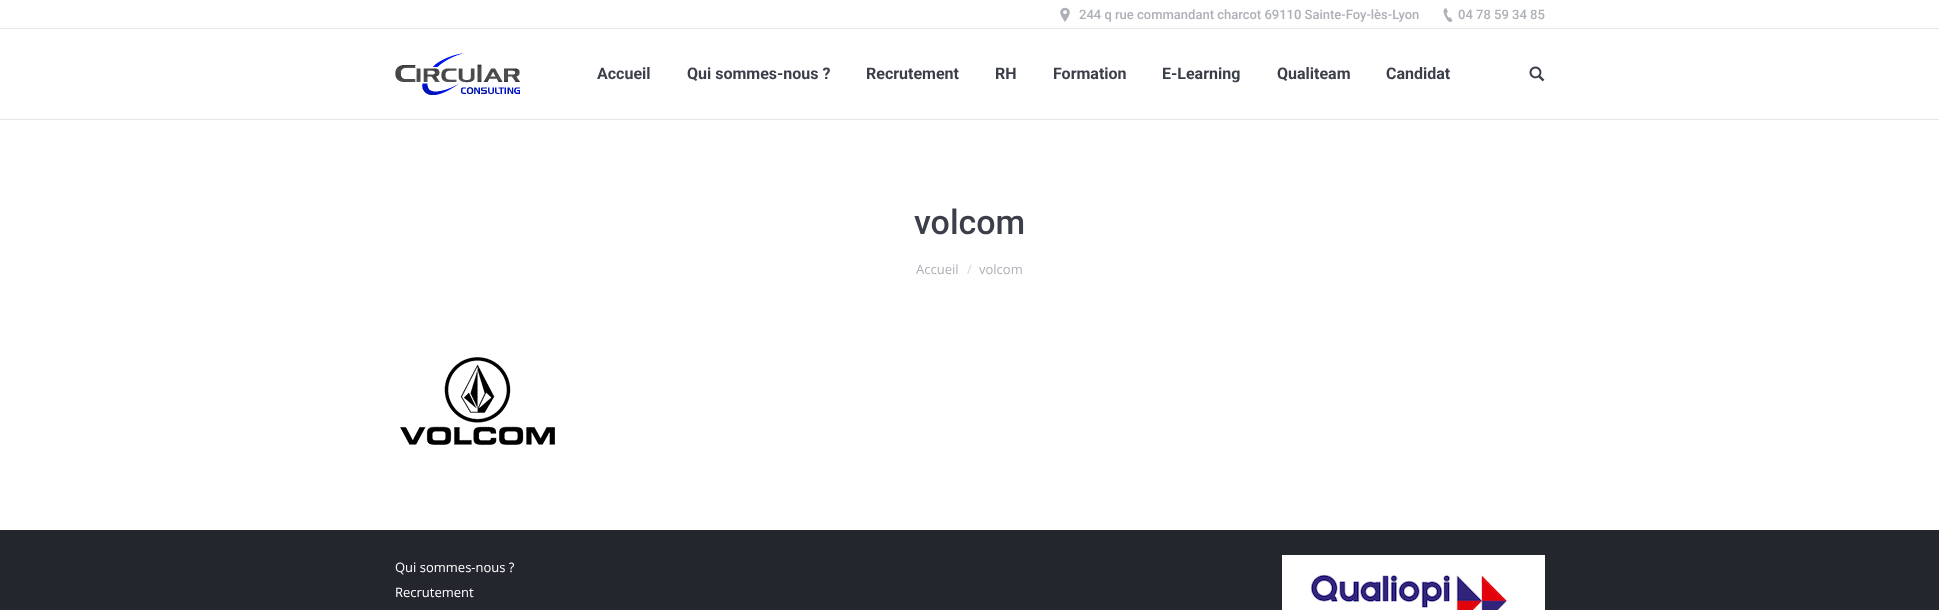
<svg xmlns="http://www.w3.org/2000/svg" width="1939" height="610">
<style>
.a{font:500 13px Roboto;fill:#adb0b6}
.b{font:bold 16px Roboto;fill:#3b3f4a}
.c{font:500 34px Roboto;fill:#3b3f4a}
.d{font:13px Open Sans;fill:#adb0b6}
.e{font:13px Open Sans;fill:#d6d8db}
.f{font:13px Open Sans;fill:#fff}
</style>
<rect width="100%" height="100%" fill="#fff"/>
<path fill="#e6e7e9" d="M0 119h1939v1H0z"/>
<image href="1.png" x="1060" y="7" width="10" height="15"/>
<image href="2.png" x="1443" y="8" width="10" height="14"/>
<path fill="#e6e7e9" d="M0 28h1939v1H0z"/>
<image href="3.png" x="395" y="53" width="125" height="42"/>
<image href="4.png" x="1529" y="66" width="16" height="16"/>
<image href="5.png" x="400" y="357" width="155" height="88"/>
<path fill="#23262d" d="M0 530h1939v80H0z"/>
<image href="6.png" x="1282" y="555" width="263" height="55"/>
<text class="a" x="1079" y="19">244 q rue commandant charcot 69110 Sainte-Foy-lès-Lyon</text>
<text class="a" x="1458" y="19">04 78 59 34 85</text>
<text class="b" x="597" y="79">Accueil</text>
<text class="b" x="687" y="79">Qui sommes-nous ?</text>
<text class="b" x="866" y="79">Recrutement</text>
<text class="b" x="995" y="79">RH</text>
<text class="b" x="1053" y="79">Formation</text>
<text class="b" x="1162" y="79">E-Learning</text>
<text class="b" x="1277" y="79">Qualiteam</text>
<text class="b" x="1386" y="79">Candidat</text>
<text class="c" x="914" y="234">volcom</text>
<text class="d" x="916" y="274">Accueil</text>
<text class="e" x="967" y="274">/</text>
<text class="d" x="979" y="274">volcom</text>
<text class="f" x="395" y="572">Qui sommes-nous ?</text>
<text class="f" x="395" y="597">Recrutement</text>
</svg>
